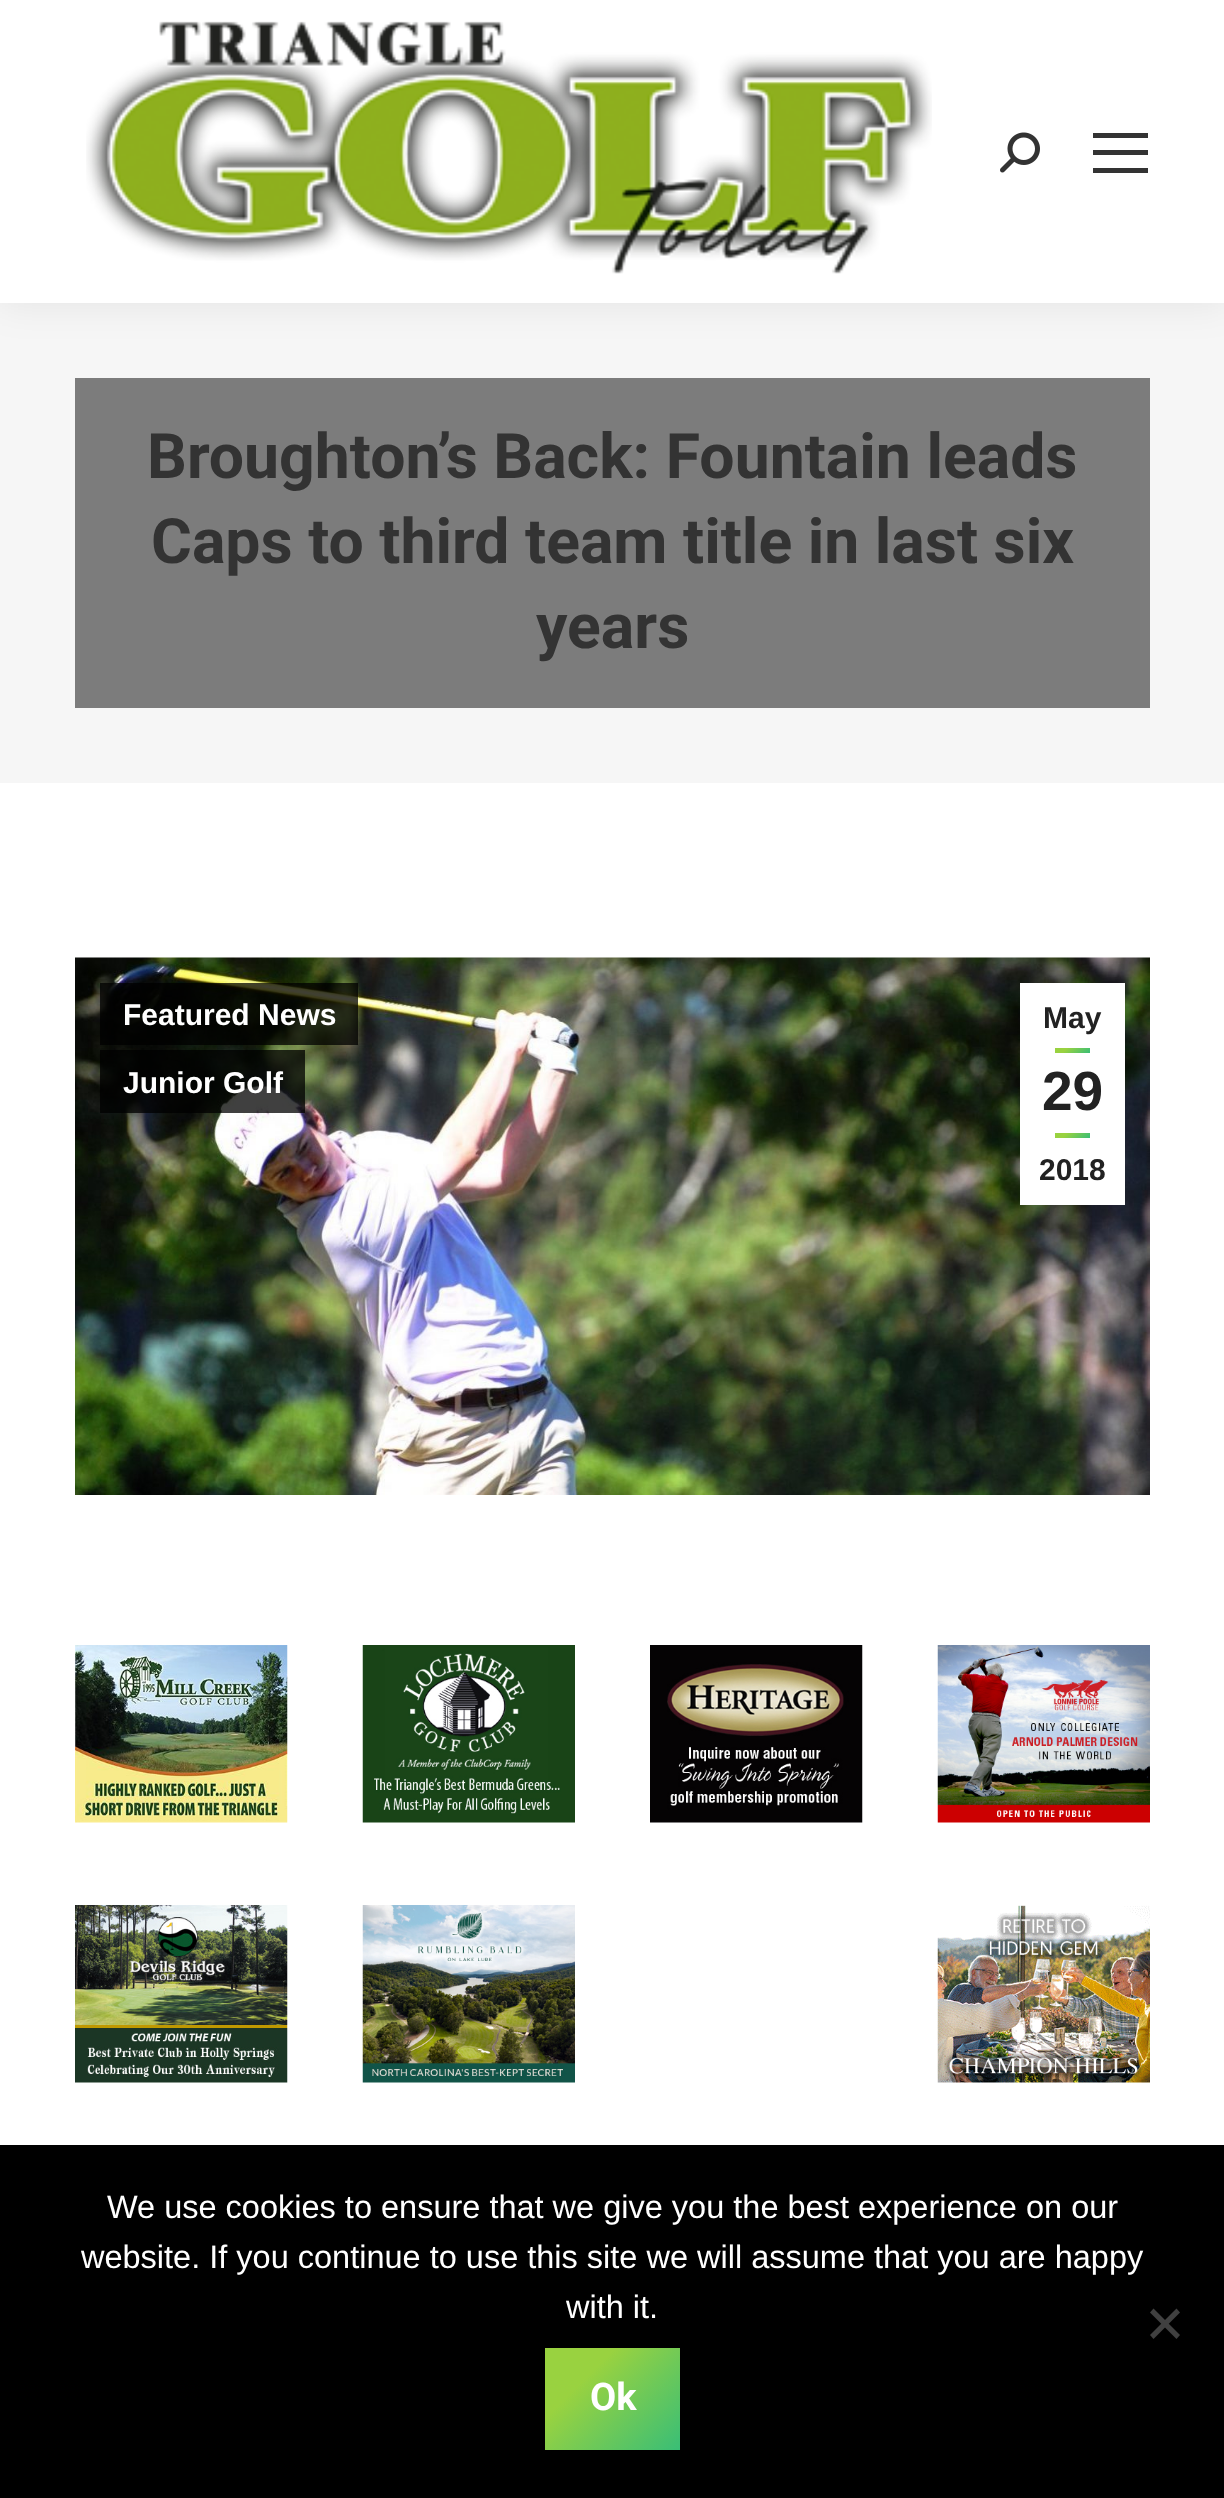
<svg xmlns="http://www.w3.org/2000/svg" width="1224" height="2498">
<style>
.a{font:bold 62.5px Roboto;fill:#333}
.b{font:bold 30px Liberation Sans;fill:#fff}
.c{font:bold 30px Liberation Sans;fill:#222}
.d{font:bold 55px Liberation Sans;fill:#222}
.e{font:32.5px Liberation Sans;fill:#fff}
.f{font:bold 38px Roboto;fill:#fff}
</style>
<defs>
<linearGradient id="g1" gradientUnits="userSpaceOnUse" x1="1063" y1="1040" x2="1083" y2="1060"><stop offset="0.3" stop-color="#99d240"/><stop offset="1" stop-color="#39be76"/></linearGradient>
<linearGradient id="g2" gradientUnits="userSpaceOnUse" x1="1063" y1="1125" x2="1083" y2="1145"><stop offset="0.3" stop-color="#99d240"/><stop offset="1" stop-color="#39be76"/></linearGradient>
<linearGradient id="g3" gradientUnits="userSpaceOnUse" x1="553" y1="2339" x2="672" y2="2458"><stop offset="0.3" stop-color="#99d240"/><stop offset="1" stop-color="#39be76"/></linearGradient>
</defs>
<rect width="100%" height="100%" fill="#fff"/>
<path fill="#f6f6f6" d="M0 303h1224v480H0z"/>
<path fill="#00000012" filter="blur(19px)" d="M-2 -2h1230v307H-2z"/>
<path fill="#fff" d="M0 0h1224v303H0z"/>
<image href="1.png" x="86" y="21" width="846" height="253"/>
<image href="2.png" x="1000" y="132" width="40" height="41"/>
<path fill="#333" d="M1093 133h55v5H1093z"/>
<path fill="#333" d="M1093 150h55v5H1093z"/>
<path fill="#333" d="M1093 168h55v5H1093z"/>
<path fill="#7c7c7c" d="M75 378h1075v330H75z"/>
<image href="3.png" x="75" y="957" width="1075" height="538"/>
<path fill="#000000bf" d="M100 983h258v62H100z"/>
<path fill="#000000bf" d="M100 1050h205v63H100z"/>
<path fill="#fff" d="M1020 983h105v222H1020z"/>
<path fill="url(#g1)" d="M1055 1048h35v5H1055z"/>
<path fill="url(#g2)" d="M1055 1133h35v5H1055z"/>
<image href="4.png" x="75" y="1645" width="213" height="178"/>
<image href="5.png" x="362" y="1645" width="213" height="178"/>
<image href="6.png" x="650" y="1645" width="213" height="178"/>
<image href="7.png" x="937" y="1645" width="213" height="178"/>
<image href="8.png" x="75" y="1905" width="213" height="178"/>
<image href="9.png" x="362" y="1905" width="213" height="178"/>
<image href="10.png" x="937" y="1905" width="213" height="178"/>
<path fill="#000" d="M0 2145h1224v353H0z"/>
<path fill="#404040" d="M1176.5 2308.5l3.5 4l-26.5 26.5l-3.5-4z"/>
<path fill="#404040" d="M1150 2312.5l3.5-4l26.5 26.5l-3.5 4z"/>
<path fill="url(#g3)" d="M545 2348h135v102H545z"/>
<text class="a" x="147" y="478">Broughton’s Back: Fountain leads</text>
<text class="a" x="151" y="563">Caps to third team title in last six</text>
<text class="a" x="536" y="648">years</text>
<text class="b" x="123" y="1025">Featured News</text>
<text class="b" x="123" y="1093">Junior Golf</text>
<text class="c" x="1043" y="1028">May</text>
<text class="d" x="1042" y="1110">29</text>
<text class="c" x="1039" y="1180">2018</text>
<text class="e" x="107" y="2218">We use cookies to ensure that we give you the best experience on our</text>
<text class="e" x="81" y="2268">website. If you continue to use this site we will assume that you are happy</text>
<text class="e" x="566" y="2318">with it.</text>
<text class="f" x="590" y="2410">Ok</text>
</svg>
